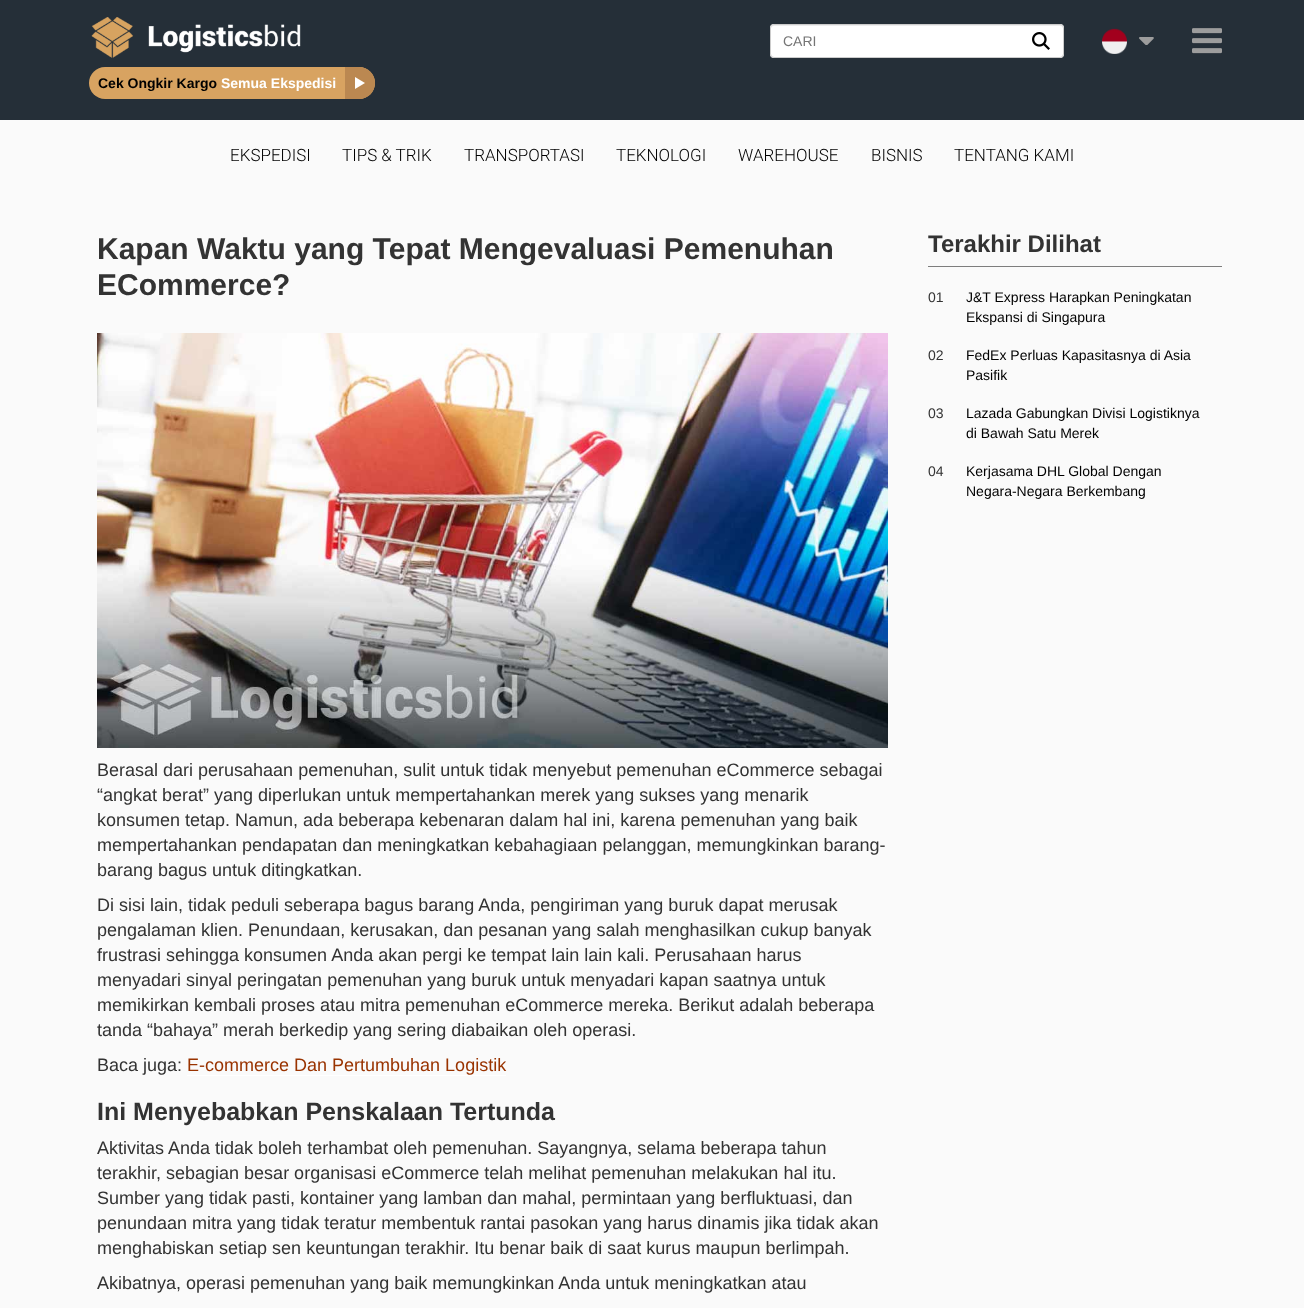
<svg xmlns="http://www.w3.org/2000/svg" width="1304" height="1308">
<style>
.a{font:14px Liberation Sans;fill:#757575}
.b{font:bold 14px Liberation Sans;fill:#000}
.c{font:bold 14px Liberation Sans;fill:#fff}
.d{font:300 17px Roboto;fill:#000}
.e{font:bold 30px Liberation Sans;fill:#333}
.f{font:18px Liberation Sans;fill:#333}
.g{font:18px Liberation Sans;fill:#930}
.h{font:bold 25px Liberation Sans;fill:#333}
.i{font:bold 24px Liberation Sans;fill:#333}
.j{font:14px Liberation Sans;fill:#333}
.k{font:14px Liberation Sans;fill:#000}
</style>
<rect width="100%" height="100%" fill="#fafafa"/>
<path fill="#252f38" d="M0 0h1304v120H0z"/>
<rect fill="#fff" x="770" y="24" width="294" height="34" rx="4"/>
<path fill="#ececec" d="M774 26h286c2 0 3 1 3 3c0-2-1-4-3-4h-286c-2 0-3 2-3 4c0-2 1-3 3-3z"/>
<rect fill="none" stroke="#ccc" x="770.5" y="24.5" width="293" height="33" rx="3.5"/>
<image href="1.png" x="1032" y="32" width="18" height="18"/>
<image href="2.png" x="1102" y="28" width="25" height="26"/>
<image href="3.png" x="1139" y="37" width="15" height="8"/>
<image href="4.png" x="1192" y="28" width="30" height="26"/>
<image href="5.png" x="91" y="17" width="210" height="41"/>
<rect fill="#d8a361" x="89" y="67" width="286" height="32" rx="16"/>
<path fill="#bb8851" d="M345 67h14c9 0 16 7 16 16c0 9-7 16-16 16h-14z"/>
<path fill="#fff" d="M355 89v-12l10 6z"/>
<image href="6.png" x="97" y="333" width="791" height="415"/>
<path fill="#fff" d="M187 1075h319v1H187z"/>
<path fill="#7d7d7d" d="M928 266h294v1H928z"/>
<text class="a" x="783" y="46">CARI</text>
<text class="b" x="98" y="88">Cek Ongkir Kargo</text>
<text class="c" x="221" y="88">Semua Ekspedisi</text>
<text class="d" x="230" y="161">EKSPEDISI</text>
<text class="d" x="342" y="161">TIPS &amp; TRIK</text>
<text class="d" x="464" y="161">TRANSPORTASI</text>
<text class="d" x="616" y="161">TEKNOLOGI</text>
<text class="d" x="738" y="161">WAREHOUSE</text>
<text class="d" x="871" y="161">BISNIS</text>
<text class="d" x="954" y="161">TENTANG KAMI</text>
<text class="e" x="97" y="259">Kapan Waktu yang Tepat Mengevaluasi Pemenuhan</text>
<text class="e" x="97" y="295">ECommerce?</text>
<text class="f" x="97" y="776">Berasal dari perusahaan pemenuhan, sulit untuk tidak menyebut pemenuhan eCommerce sebagai</text>
<text class="f" x="97" y="801">“angkat berat” yang diperlukan untuk mempertahankan merek yang sukses yang menarik</text>
<text class="f" x="97" y="826">konsumen tetap. Namun, ada beberapa kebenaran dalam hal ini, karena pemenuhan yang baik</text>
<text class="f" x="97" y="851">mempertahankan pendapatan dan meningkatkan kebahagiaan pelanggan, memungkinkan barang-</text>
<text class="f" x="97" y="876">barang bagus untuk ditingkatkan.</text>
<text class="f" x="97" y="911">Di sisi lain, tidak peduli seberapa bagus barang Anda, pengiriman yang buruk dapat merusak</text>
<text class="f" x="97" y="936">pengalaman klien. Penundaan, kerusakan, dan pesanan yang salah menghasilkan cukup banyak</text>
<text class="f" x="97" y="961">frustrasi sehingga konsumen Anda akan pergi ke tempat lain lain kali. Perusahaan harus</text>
<text class="f" x="97" y="986">menyadari sinyal peringatan pemenuhan yang buruk untuk menyadari kapan saatnya untuk</text>
<text class="f" x="97" y="1011">memikirkan kembali proses atau mitra pemenuhan eCommerce mereka. Berikut adalah beberapa</text>
<text class="f" x="97" y="1036">tanda “bahaya” merah berkedip yang sering diabaikan oleh operasi.</text>
<text class="f" x="97" y="1071">Baca juga:</text>
<text class="g" x="187" y="1071">E-commerce Dan Pertumbuhan Logistik</text>
<text class="h" x="97" y="1120">Ini Menyebabkan Penskalaan Tertunda</text>
<text class="f" x="97" y="1154">Aktivitas Anda tidak boleh terhambat oleh pemenuhan. Sayangnya, selama beberapa tahun</text>
<text class="f" x="97" y="1179">terakhir, sebagian besar organisasi eCommerce telah melihat pemenuhan melakukan hal itu.</text>
<text class="f" x="97" y="1204">Sumber yang tidak pasti, kontainer yang lamban dan mahal, permintaan yang berfluktuasi, dan</text>
<text class="f" x="97" y="1229">penundaan mitra yang tidak teratur membentuk rantai pasokan yang harus dinamis jika tidak akan</text>
<text class="f" x="97" y="1254">menghabiskan setiap sen keuntungan terakhir. Itu benar baik di saat kurus maupun berlimpah.</text>
<text class="f" x="97" y="1289">Akibatnya, operasi pemenuhan yang baik memungkinkan Anda untuk meningkatkan atau</text>
<text class="i" x="928" y="252">Terakhir Dilihat</text>
<text class="j" x="928" y="302">01</text>
<text class="k" x="966" y="302">J&amp;T Express Harapkan Peningkatan</text>
<text class="k" x="966" y="322">Ekspansi di Singapura</text>
<text class="j" x="928" y="360">02</text>
<text class="k" x="966" y="360">FedEx Perluas Kapasitasnya di Asia</text>
<text class="k" x="966" y="380">Pasifik</text>
<text class="j" x="928" y="418">03</text>
<text class="k" x="966" y="418">Lazada Gabungkan Divisi Logistiknya</text>
<text class="k" x="966" y="438">di Bawah Satu Merek</text>
<text class="j" x="928" y="476">04</text>
<text class="k" x="966" y="476">Kerjasama DHL Global Dengan</text>
<text class="k" x="966" y="496">Negara-Negara Berkembang</text>
</svg>
